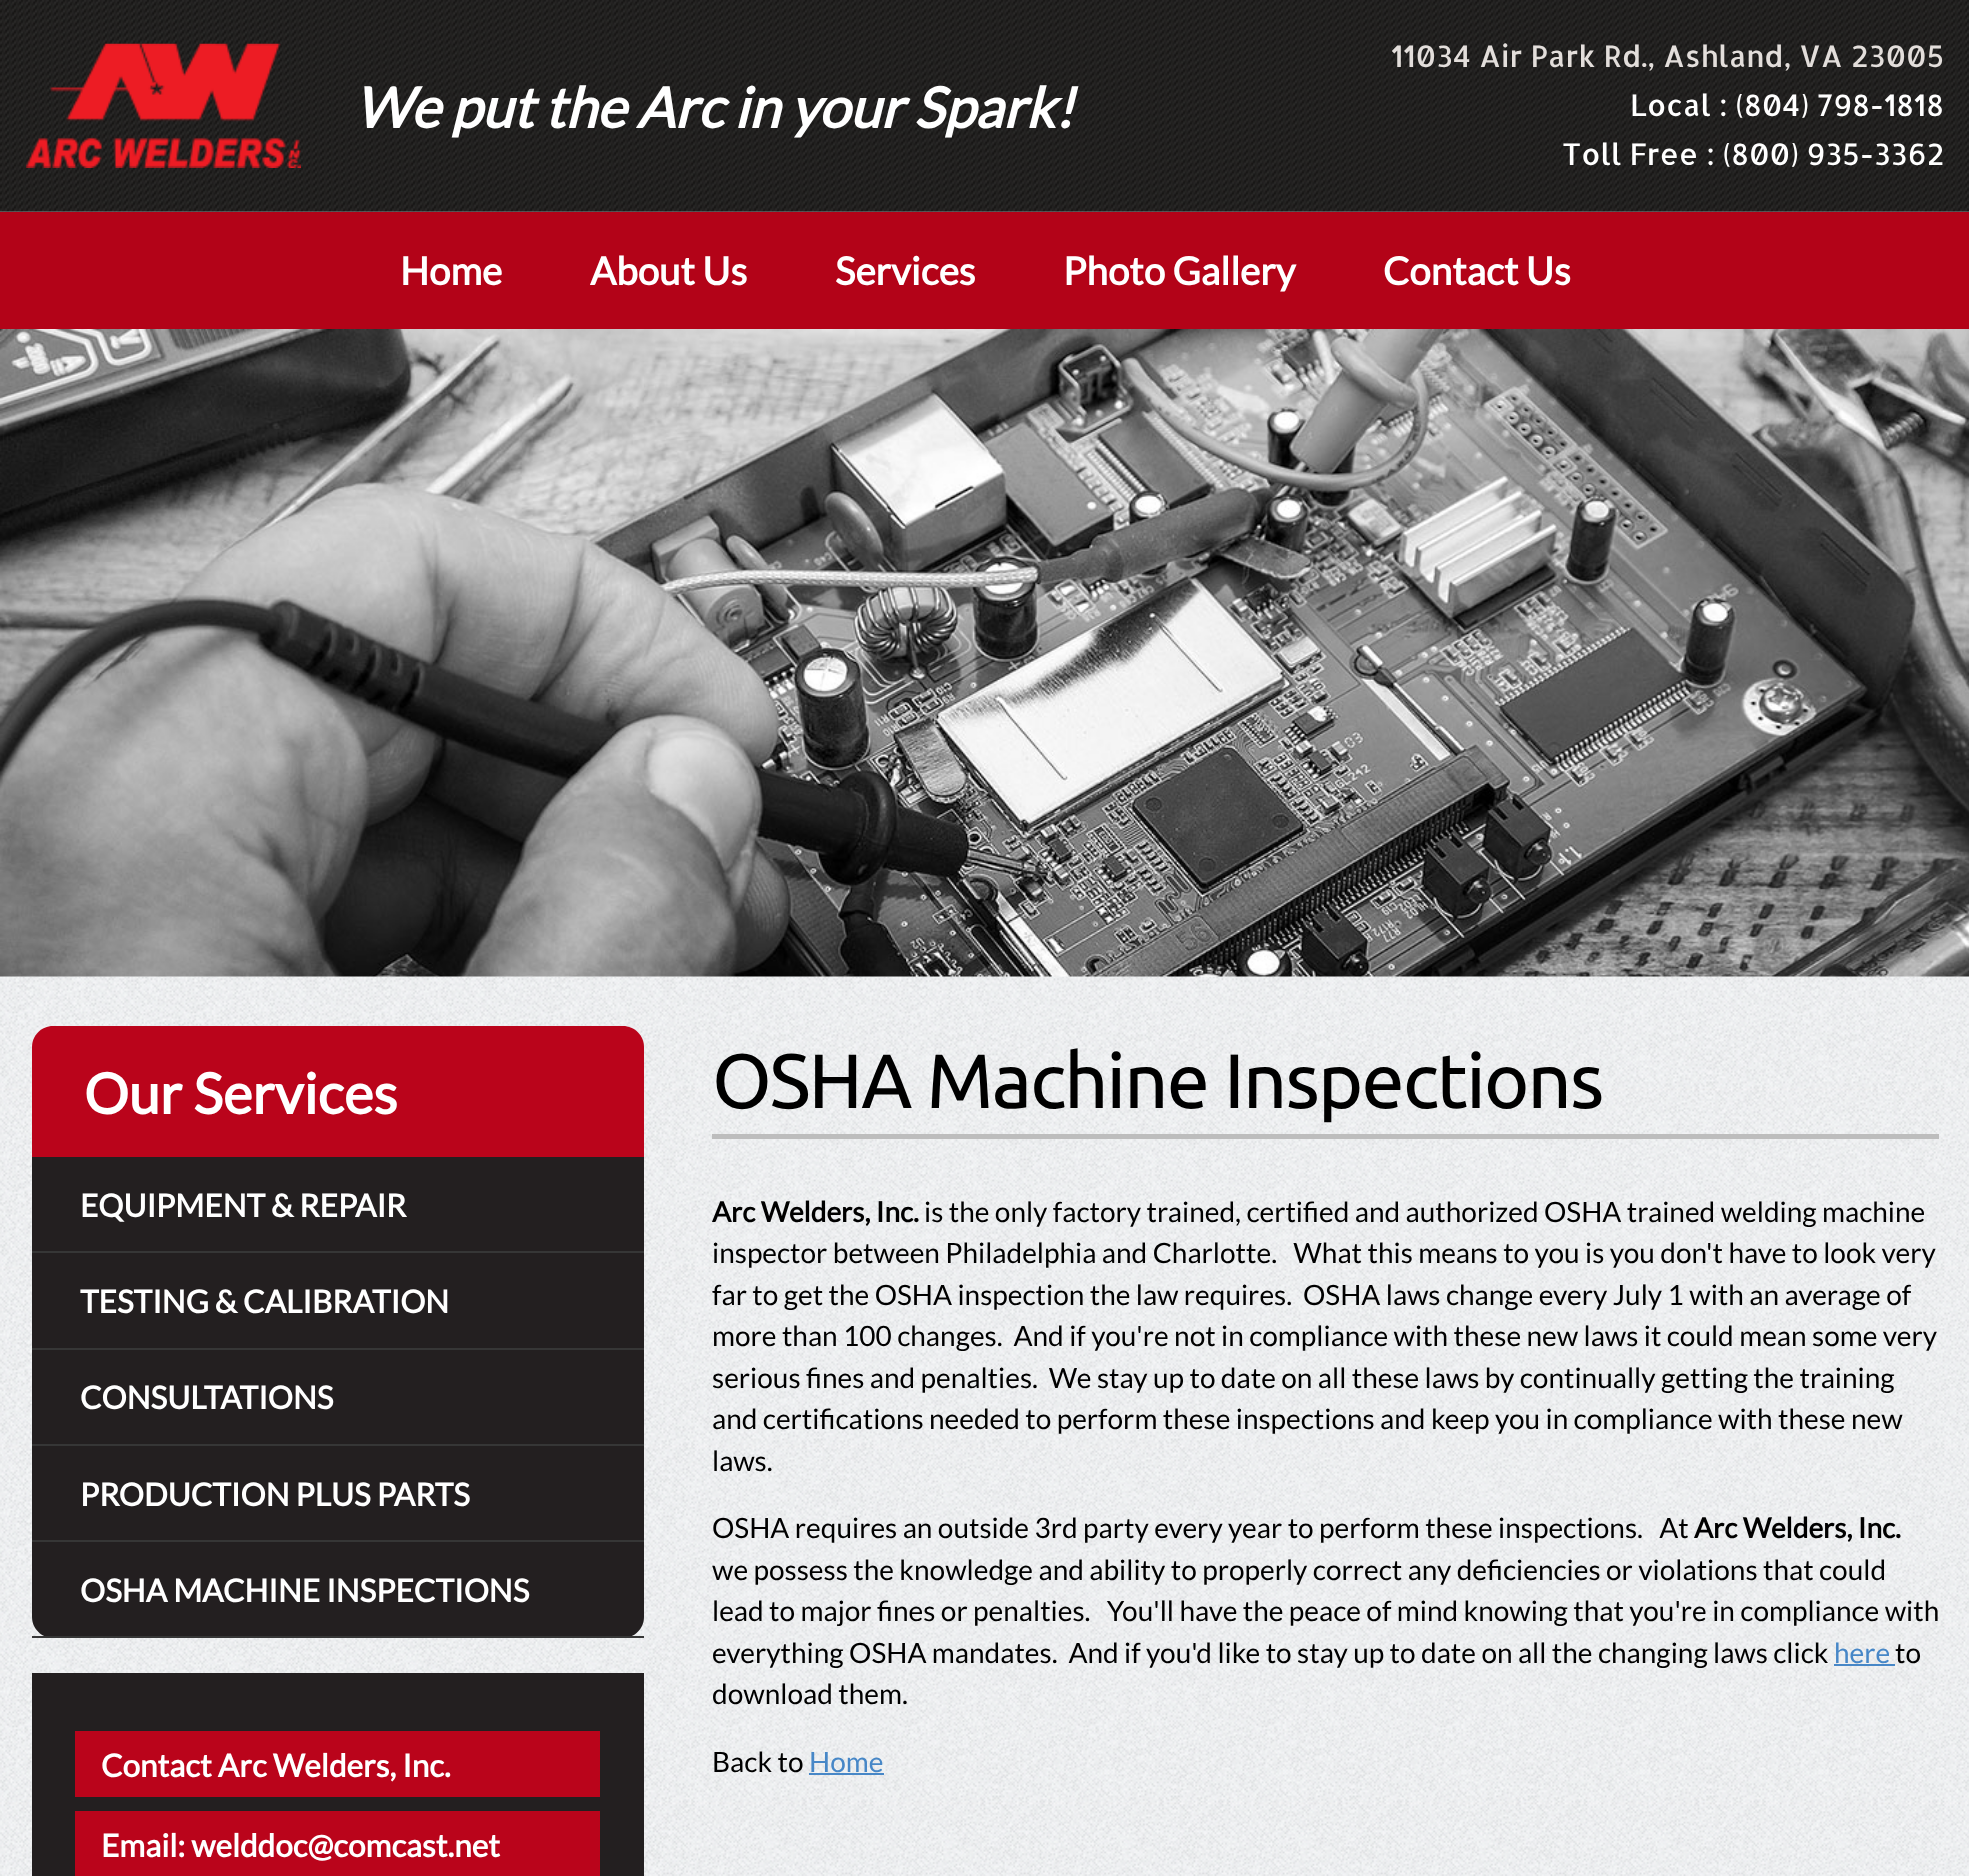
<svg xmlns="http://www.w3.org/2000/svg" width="1969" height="1876">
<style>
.a{font:italic bold 56px Lato;fill:#fff}
.b{font:29.75px Allerta;fill:#e3dedb}
.c{font:29.75px Allerta;fill:#fff}
.d{font:bold 38.5px Lato;fill:#fff}
.e{font:bold 56px Lato;fill:#fff}
.f{font:bold 31.5px Lato;fill:#fff}
.g{font:77px Ubuntu;letter-spacing:-1.75px;fill:#000}
.h{font:bold 28px Lato;fill:#000}
.i{font:28px Lato;fill:#000}
.j{font:28px Lato;fill:#4787c7}
</style>
<rect width="100%" height="100%" fill="#fff"/>
<image href="1.png" x="0" y="211" width="1969" height="1665"/>
<image href="2.png" x="0" y="0" width="1969" height="212"/>
<image href="3.png" x="26" y="43" width="275" height="125"/>
<path fill="#b30318" d="M0 212h1969v117H0z"/>
<image href="4.png" x="0" y="329" width="1969" height="648"/>
<path fill="#ba041b" d="M53 1026h570c11.5 0 21 9.5 21 21v110h-612v-110c0-11.5 9.5-21 21-21z"/>
<path fill="#231f20" d="M32 1157h612v460c0 11.5-9.5 21-21 21h-570c-11.5 0-21-9.5-21-21z"/>
<path fill="#363636" d="M32 1251h612v2H32z"/>
<path fill="#363636" d="M32 1348h612v2H32z"/>
<path fill="#363636" d="M32 1444h612v2H32z"/>
<path fill="#363636" d="M32 1540h612v2H32z"/>
<path fill="#363636" d="M32 1636h612v2H32z"/>
<path fill="#231f20" d="M32 1673h612v203H32z"/>
<path fill="#ba041b" d="M75 1731h525v66H75z"/>
<path fill="#ba041b" d="M75 1811h525v65H75z"/>
<path fill="#bdbdbd" d="M712 1134h1227v5H712z"/>
<path fill="#4787c7" d="M1834 1664h61v2H1834z"/>
<path fill="#4787c7" d="M809 1773h75v2H809z"/>
<text class="a" x="354" y="128">We put the Arc in your Spark!</text>
<text class="b" x="1391" y="67">11034 Air Park Rd., Ashland, VA 23005</text>
<text class="c" x="1630" y="116">Local : (804) 798-1818</text>
<text class="c" x="1562" y="165">Toll Free : (800) 935-3362</text>
<text class="d" x="400" y="285">Home</text>
<text class="d" x="590" y="285">About Us</text>
<text class="d" x="835" y="285">Services</text>
<text class="d" x="1063" y="285">Photo Gallery</text>
<text class="d" x="1383" y="285">Contact Us</text>
<text class="e" x="84" y="1114">Our Services</text>
<text class="f" x="80" y="1217">EQUIPMENT &amp; REPAIR</text>
<text class="f" x="80" y="1313">TESTING &amp; CALIBRATION</text>
<text class="f" x="80" y="1409">CONSULTATIONS</text>
<text class="f" x="80" y="1506">PRODUCTION PLUS PARTS</text>
<text class="f" x="80" y="1602">OSHA MACHINE INSPECTIONS</text>
<text class="f" x="101" y="1777">Contact Arc Welders, Inc.</text>
<text class="f" x="101" y="1857">Email: welddoc@comcast.net</text>
<text class="g" x="712" y="1108">OSHA Machine Inspections</text>
<text class="h" x="712" y="1222">Arc Welders, Inc.</text>
<text class="i" x="924" y="1222">is the only factory trained, certified and authorized OSHA trained welding machine</text>
<text class="i" xml:space="preserve" x="712" y="1263">inspector between Philadelphia and Charlotte.   What this means to you is you don't have to look very</text>
<text class="i" xml:space="preserve" x="712" y="1305">far to get the OSHA inspection the law requires.  OSHA laws change every July 1 with an average of</text>
<text class="i" xml:space="preserve" x="712" y="1346">more than 100 changes.  And if you're not in compliance with these new laws it could mean some very</text>
<text class="i" xml:space="preserve" x="712" y="1388">serious fines and penalties.  We stay up to date on all these laws by continually getting the training</text>
<text class="i" x="712" y="1429">and certifications needed to perform these inspections and keep you in compliance with these new</text>
<text class="i" x="712" y="1471">laws.</text>
<text class="i" xml:space="preserve" x="712" y="1538">OSHA requires an outside 3rd party every year to perform these inspections.   At</text>
<text class="h" x="1694" y="1538">Arc Welders, Inc.</text>
<text class="i" x="712" y="1580">we possess the knowledge and ability to properly correct any deficiencies or violations that could</text>
<text class="i" xml:space="preserve" x="712" y="1621">lead to major fines or penalties.   You'll have the peace of mind knowing that you're in compliance with</text>
<text class="i" xml:space="preserve" x="712" y="1663">everything OSHA mandates.  And if you'd like to stay up to date on all the changing laws click</text>
<text class="j" x="1834" y="1663">here</text>
<text class="i" x="1895" y="1663">to</text>
<text class="i" x="712" y="1704">download them.</text>
<text class="i" x="712" y="1772">Back to</text>
<text class="j" x="809" y="1772">Home</text>
</svg>
